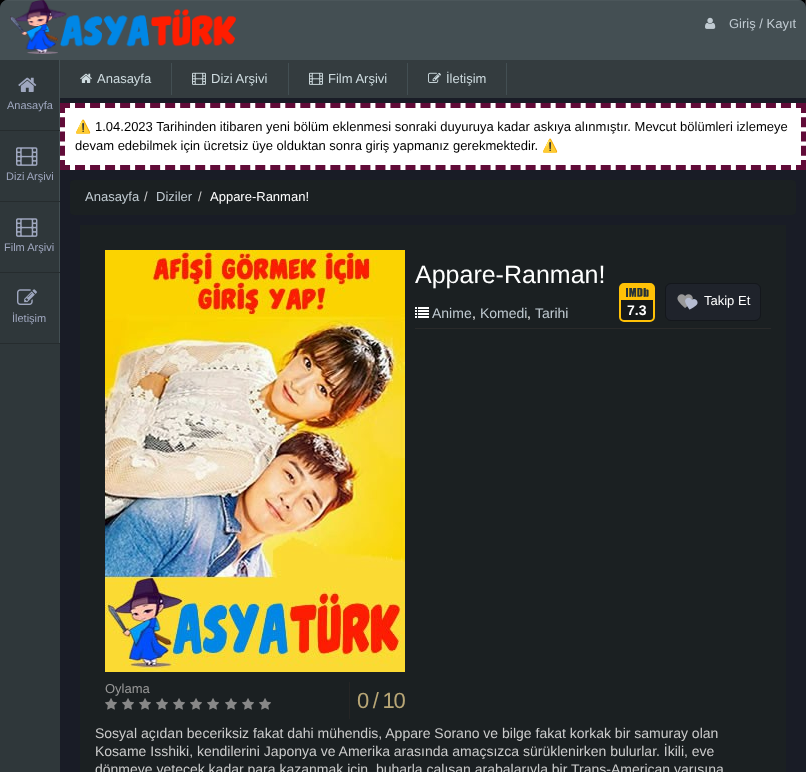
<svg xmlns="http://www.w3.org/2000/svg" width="806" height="772">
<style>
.a{font:13px Liberation Sans;fill:#c1cbd2}
.b{font:13px Liberation Sans;fill:#cedbdf}
.c{font:11px Liberation Sans;fill:#9fa7bf}
.d{font:13px Noto Color Emoji;fill:#000}
.e{font:13px Liberation Sans;fill:#000}
.f{font:13px Liberation Sans;fill:#ccc}
.g{font:13px Liberation Sans;fill:#fff}
.h{font:25px Liberation Sans;fill:#fff}
.i{font:14px Liberation Sans;fill:#c1cbd2}
.j{font:14px Liberation Sans;fill:#fff}
.k{font:bold 14px Liberation Sans;fill:#fff}
.l{font:14px Liberation Sans;fill:#ccc}
.m{font:13px Liberation Sans;fill:#999}
.n{font:22px Liberation Sans;letter-spacing:-1.25px;fill:#b8a676}
</style>
<defs>
<clipPath id="clip1"><rect width="806" height="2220" rx="8"/></clipPath>
</defs>
<rect width="100%" height="100%" fill="#fff"/>
<image href="1.png" x="0" y="0" width="806" height="8"/>
<rect fill="#191c26" width="806" height="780" rx="8"/>
<path fill="#444f53" d="M8 0h790c4.5 0 8 3.5 8 8v52h-806v-52c0-4.5 3.5-8 8-8z"/>
<g clip-path="url(#clip1)">
<path fill="#4b565a" d="M0 0h806v1H0z"/>
</g>
<image href="2.png" x="10" y="0" width="226" height="54"/>
<image href="3.png" x="705" y="17" width="11" height="12"/>
<path fill="#343c3f" d="M60 60h746v38H60z"/>
<path fill="#434f53" d="M171 63h1v32H171z"/>
<image href="4.png" x="80" y="73" width="12" height="10"/>
<path fill="#434f53" d="M288 63h1v32H288z"/>
<image href="5.png" x="192" y="72" width="14" height="13"/>
<path fill="#434f53" d="M407 63h1v32H407z"/>
<image href="5.png" x="309" y="72" width="14" height="13"/>
<path fill="#434f53" d="M506 63h1v32H506z"/>
<image href="6.png" x="428" y="72" width="13" height="11"/>
<path fill="#2f373a" d="M0 60h60v712H0z"/>
<path fill="#434f53" d="M59 60h1v284H59z"/>
<path fill="#262c2e" d="M0 130h60v1H0z"/>
<image href="7.png" x="18" y="77" width="19" height="15"/>
<path fill="#262c2e" d="M0 201h60v1H0z"/>
<image href="8.png" x="16" y="147" width="22" height="19"/>
<path fill="#262c2e" d="M0 272h60v1H0z"/>
<image href="8.png" x="16" y="218" width="22" height="19"/>
<path fill="#262c2e" d="M0 343h60v1H0z"/>
<image href="9.png" x="17" y="289" width="20" height="16"/>
<path fill="#fff" d="M60 103h746v67H60z"/>
<path fill="none" stroke="#610b38" stroke-width="5" stroke-dasharray="10 5.02" d="M60 105.5h746"/>
<path fill="none" stroke="#610b38" stroke-width="5" stroke-dasharray="10 4.25" d="M803.5 103v67"/>
<path fill="none" stroke="#610b38" stroke-width="5" stroke-dasharray="10 5.02" d="M60 167.5h746"/>
<path fill="none" stroke="#610b38" stroke-width="5" stroke-dasharray="10 4.25" d="M62.5 103v67"/>
<rect fill="#1b2022" x="70" y="180" width="726" height="35" rx="4"/>
<path fill="#1b2022" d="M80 225h706v547H80z"/>
<path fill="#2a2a2a" d="M415 328h356v1H415z"/>
<image href="10.png" x="415" y="307" width="14" height="11"/>
<rect fill="#1f232b" stroke="#14171c" x="665.5" y="283.5" width="95" height="37" rx="5.5"/>
<image href="11.png" x="677" y="294" width="16" height="14"/>
<image href="12.png" x="685" y="297" width="13" height="13"/>
<rect fill="none" stroke="#ffc107" stroke-width="2" x="620" y="284" width="34" height="37" rx="4"/>
<path fill="#ffc107" d="M621 285h32v15H621z"/>
<path fill="#263238" d="M626 288h2v9H626z"/>
<image href="13.png" x="629" y="288" width="8" height="9"/>
<image href="14.png" x="637" y="288" width="6" height="9"/>
<image href="15.png" x="643" y="288" width="6" height="9"/>
<path fill="#161a1b" d="M621 300h32v15c0 3-2 5-5 5h-22c-3 0-5-2-5-5z"/>
<image href="16.png" x="105" y="250" width="300" height="422"/>
<image href="17.png" x="105" y="698" width="12" height="12"/>
<image href="17.png" x="122" y="698" width="12" height="12"/>
<image href="17.png" x="139" y="698" width="12" height="12"/>
<image href="17.png" x="156" y="698" width="12" height="12"/>
<image href="17.png" x="173" y="698" width="12" height="12"/>
<image href="17.png" x="190" y="698" width="12" height="12"/>
<image href="17.png" x="207" y="698" width="12" height="12"/>
<image href="17.png" x="225" y="698" width="12" height="12"/>
<image href="17.png" x="242" y="698" width="12" height="12"/>
<image href="17.png" x="259" y="698" width="12" height="12"/>
<path fill="#252525" d="M349 682h1v37H349z"/>
<text class="a" x="729" y="28">Giriş / Kayıt</text>
<text class="b" x="97" y="83">Anasayfa</text>
<text class="b" x="211" y="83">Dizi Arşivi</text>
<text class="b" x="328" y="83">Film Arşivi</text>
<text class="b" x="446" y="83">İletişim</text>
<text class="c" x="7" y="109">Anasayfa</text>
<text class="c" x="6" y="180">Dizi Arşivi</text>
<text class="c" x="4" y="251">Film Arşivi</text>
<text class="c" x="12" y="322">İletişim</text>
<text class="d" x="75" y="131">⚠️</text>
<text class="e" x="95" y="131">1.04.2023 Tarihinden itibaren yeni bölüm eklenmesi sonraki duyuruya kadar askıya alınmıştır. Mevcut bölümleri izlemeye</text>
<text class="e" x="75" y="150">devam edebilmek için ücretsiz üye olduktan sonra giriş yapmanız gerekmektedir.</text>
<text class="d" x="542" y="150">⚠️</text>
<text class="a" x="85" y="201">Anasayfa</text>
<text class="f" x="144" y="201">/</text>
<text class="a" x="156" y="201">Diziler</text>
<text class="f" x="198" y="201">/</text>
<text class="g" x="210" y="201">Appare-Ranman!</text>
<text class="h" x="415" y="283">Appare-Ranman!</text>
<text class="i" x="432" y="318">Anime</text>
<text class="j" x="472" y="318">,</text>
<text class="i" x="480" y="318">Komedi</text>
<text class="j" x="527" y="318">,</text>
<text class="i" x="535" y="318">Tarihi</text>
<text class="g" x="704" y="305">Takip Et</text>
<text class="k" x="627" y="315">7.3</text>
<text class="l" x="95" y="738">Sosyal açıdan beceriksiz fakat dahi mühendis, Appare Sorano ve bilge fakat korkak bir samuray olan</text>
<text class="l" x="95" y="756">Kosame Isshiki, kendilerini Japonya ve Amerika arasında amaçsızca sürüklenirken bulurlar. İkili, eve</text>
<text class="l" x="95" y="774">dönmeye yetecek kadar para kazanmak için, buharla çalışan arabalarıyla bir Trans-American yarışına</text>
<text class="m" x="105" y="693">Oylama</text>
<text class="n" x="357" y="708">0 / 10</text>
</svg>
